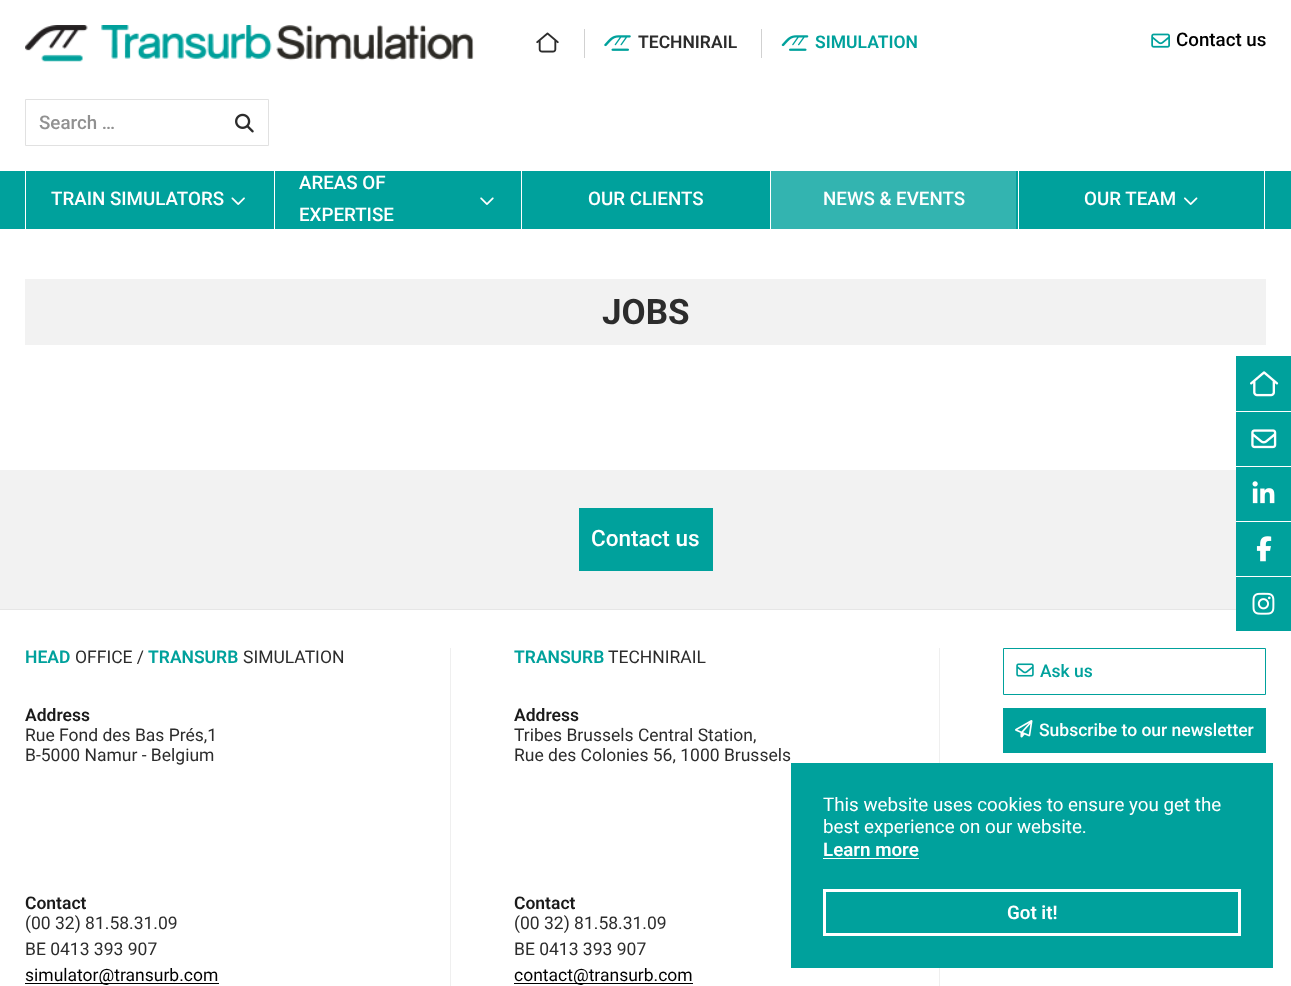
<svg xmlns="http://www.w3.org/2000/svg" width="1291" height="986">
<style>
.a{font:600 17.5px Roboto;fill:#2c2c2c}
.b{font:600 17.5px Roboto;fill:#00a19c}
.c{font:500 18.75px Roboto;fill:#000}
.d{font:500 18.75px Roboto;fill:#919191}
.e{font:500 18.75px Roboto;fill:#fff}
.f{font:bold 35px Roboto;fill:#2c2c2c}
.g{font:500 22.5px Roboto;fill:#fff}
.h{font:17.5px Roboto;fill:#2c2c2c}
.i{font:600 17.5px Roboto;fill:#1a1a1a}
.j{font:17.5px Roboto;fill:#000}
.k{font:500 17.5px Roboto;fill:#00a19c}
.l{font:500 17.5px Roboto;fill:#fff}
.m{font:18.75px Roboto;fill:#fff}
.n{font:600 18.75px Roboto;fill:#fff}
</style>
<rect width="100%" height="100%" fill="#fff"/>
<image href="1.png" x="25" y="25" width="449" height="37"/>
<image href="2.png" x="536" y="32" width="23" height="21"/>
<path fill="#d1d1d1" d="M584 29h1v29H584z"/>
<image href="3.png" x="604" y="35" width="27" height="16"/>
<path fill="#d1d1d1" d="M761 29h1v29H761z"/>
<image href="4.png" x="781" y="35" width="28" height="16"/>
<image href="5.png" x="1151" y="33" width="19" height="15"/>
<path fill="none" stroke="#e1e1e1" d="M25.5 99.5h243v46H25.5z"/>
<image href="6.png" x="235" y="113" width="19" height="20"/>
<path fill="#00a19c" d="M0 171h1291v58H0z"/>
<path fill="#fff" d="M25 171h1v58H25z"/>
<image href="7.png" x="231" y="197" width="14" height="8"/>
<path fill="#fff" d="M274 171h1v58H274z"/>
<image href="8.png" x="480" y="197" width="14" height="8"/>
<path fill="#fff" d="M521 171h1v58H521z"/>
<path fill="#33b4b0" d="M771 171h245v58H771z"/>
<path fill="#fff" d="M770 171h1v58H770z"/>
<path fill="#fff" d="M1264 171h1v58H1264z"/>
<path fill="#fff" d="M1018 171h1v58H1018z"/>
<image href="9.png" x="1184" y="197" width="14" height="8"/>
<path fill="#f2f2f2" d="M25 279h1241v66H25z"/>
<path fill="#f2f2f2" d="M0 470h1236v139H0z"/>
<path fill="#00a19c" d="M579 508h134v63H579z"/>
<path fill="#00a19c" d="M1236 356h55v55H1236z"/>
<image href="10.png" x="1250" y="371" width="29" height="26"/>
<path fill="#00a19c" d="M1236 412h55v54H1236z"/>
<image href="11.png" x="1251" y="429" width="26" height="20"/>
<path fill="#00a19c" d="M1236 467h55v54H1236z"/>
<image href="12.png" x="1252" y="481" width="23" height="23"/>
<path fill="#00a19c" d="M1236 522h55v54H1236z"/>
<image href="13.png" x="1256" y="536" width="16" height="26"/>
<path fill="#00a19c" d="M1236 577h55v54H1236z"/>
<image href="14.png" x="1252" y="592" width="23" height="23"/>
<path fill="#e6e6e6" d="M0 609h1236v1H0z"/>
<path fill="#efefef" d="M450 648h1v338H450z"/>
<path fill="#000" d="M25 983h194v1H25z"/>
<path fill="#efefef" d="M939 648h1v338H939z"/>
<path fill="#000" d="M514 983h179v1H514z"/>
<path fill="none" stroke="#00a19c" d="M1003.5 648.5h262v46H1003.5z"/>
<image href="15.png" x="1016" y="663" width="18" height="14"/>
<path fill="#00a19c" d="M1003 708h263v45H1003z"/>
<image href="16.png" x="1015" y="720" width="18" height="18"/>
<path fill="#00a19c" d="M791 763h482v205H791z"/>
<path fill="#fff" d="M823 858h96v1H823z"/>
<path fill="none" stroke="#fff" stroke-width="3" d="M824.5 890.5h415v44H824.5z"/>
<text class="a" x="638" y="48">TECHNIRAIL</text>
<text class="b" x="815" y="48">SIMULATION</text>
<text class="c" x="1176" y="46">Contact us</text>
<text class="d" x="39" y="129">Search …</text>
<text class="e" x="51" y="205">TRAIN SIMULATORS</text>
<text class="e" x="299" y="189">AREAS OF</text>
<text class="e" x="299" y="221">EXPERTISE</text>
<text class="e" x="588" y="205">OUR CLIENTS</text>
<text class="e" x="823" y="205">NEWS &amp; EVENTS</text>
<text class="e" x="1084" y="205">OUR TEAM</text>
<text class="f" x="602" y="324">JOBS</text>
<text class="g" x="591" y="546">Contact us</text>
<text class="b" x="25" y="663">HEAD</text>
<text class="h" x="75" y="663">OFFICE /</text>
<text class="b" x="148" y="663">TRANSURB</text>
<text class="h" x="243" y="663">SIMULATION</text>
<text class="i" x="25" y="721">Address</text>
<text class="h" x="25" y="741">Rue Fond des Bas Prés,1</text>
<text class="h" x="25" y="761">B-5000 Namur - Belgium</text>
<text class="i" x="25" y="909">Contact</text>
<text class="h" x="25" y="929">(00 32) 81.58.31.09</text>
<text class="h" x="25" y="955">BE 0413 393 907</text>
<text class="j" x="25" y="981">simulator@transurb.com</text>
<text class="b" x="514" y="663">TRANSURB</text>
<text class="h" x="608" y="663">TECHNIRAIL</text>
<text class="i" x="514" y="721">Address</text>
<text class="h" x="514" y="741">Tribes Brussels Central Station,</text>
<text class="h" x="514" y="761">Rue des Colonies 56, 1000 Brussels</text>
<text class="i" x="514" y="909">Contact</text>
<text class="h" x="514" y="929">(00 32) 81.58.31.09</text>
<text class="h" x="514" y="955">BE 0413 393 907</text>
<text class="j" x="514" y="981">contact@transurb.com</text>
<text class="k" x="1040" y="677">Ask us</text>
<text class="l" x="1039" y="736">Subscribe to our newsletter</text>
<text class="m" x="823" y="811">This website uses cookies to ensure you get the</text>
<text class="m" x="823" y="833">best experience on our website.</text>
<text class="n" x="823" y="856">Learn more</text>
<text class="n" x="1007" y="919">Got it!</text>
</svg>
